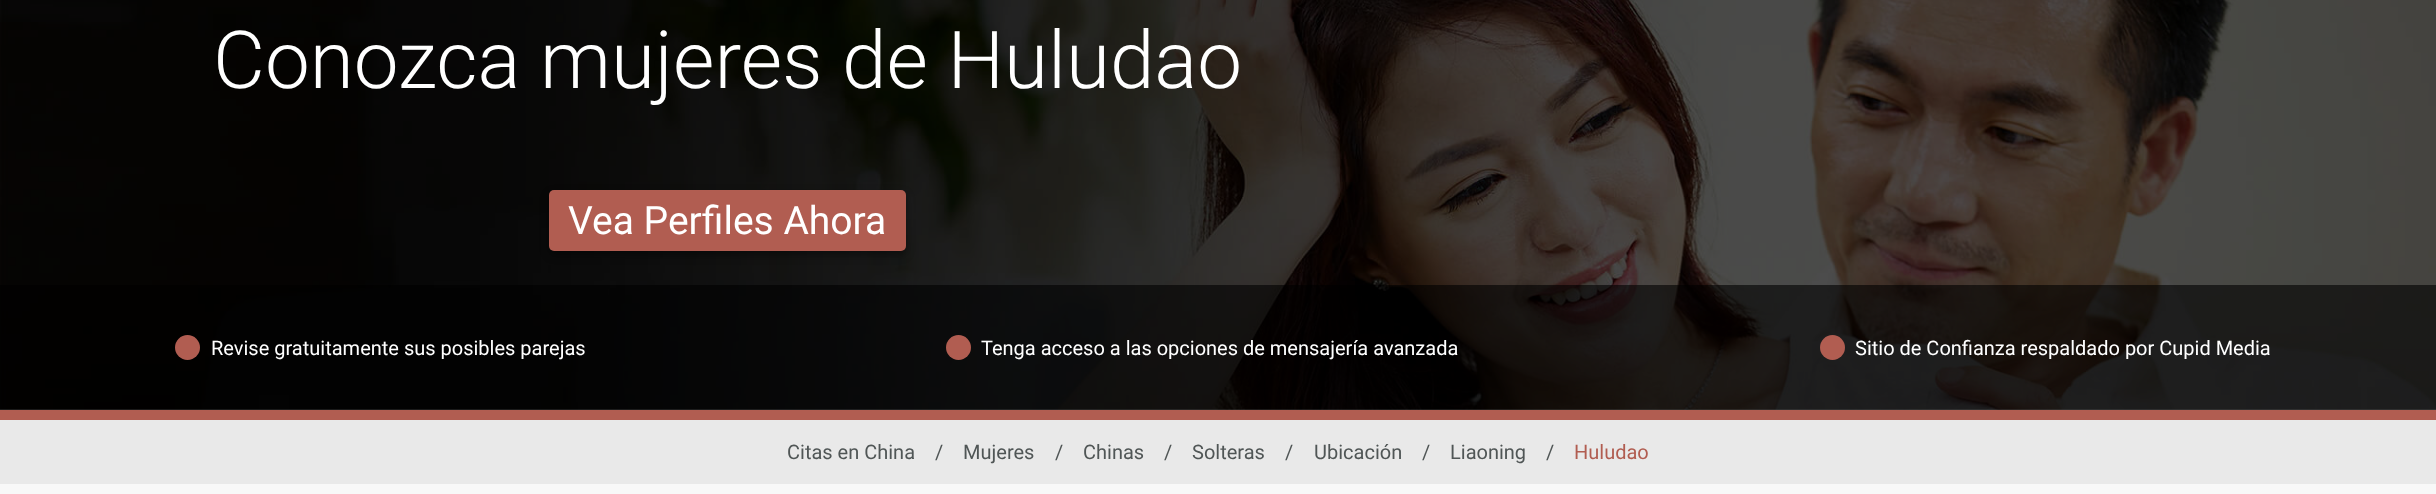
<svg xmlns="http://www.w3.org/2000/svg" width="2436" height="494">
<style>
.a{font:300 80px Roboto;fill:#fff}
.b{font:39px Roboto;fill:#fff}
.c{font:20px Roboto;fill:#fff}
.d{font:20px Roboto;fill:#505656}
.e{font:20px Roboto;fill:#b15d51}
</style>
<rect width="100%" height="100%" fill="#f8f8f8"/>
<image href="1.png" x="0" y="0" width="2436" height="410"/>
<rect fill="#00000066" filter="blur(4px)" x="549" y="194" width="357" height="61" rx="5"/>
<rect fill="#b15d51" x="549" y="190" width="357" height="61" rx="5"/>
<path fill="#00000099" d="M0 285h2436v125H0z"/>
<circle fill="#b15d51" cx="187.5" cy="347.5" r="12.5"/>
<circle fill="#b15d51" cx="958.5" cy="347.5" r="12.5"/>
<circle fill="#b15d51" cx="1832.5" cy="347.5" r="12.5"/>
<path fill="#b15d51" d="M0 410h2436v10H0z"/>
<path fill="#e9e9e9" d="M0 420h2436v64H0z"/>
<text class="a" x="213" y="88">Conozca mujeres de Huludao</text>
<text class="b" x="568" y="234">Vea Perfiles Ahora</text>
<text class="c" x="211" y="355">Revise gratuitamente sus posibles parejas</text>
<text class="c" x="981" y="355">Tenga acceso a las opciones de mensajería avanzada</text>
<text class="c" x="1855" y="355">Sitio de Confianza respaldado por Cupid Media</text>
<text class="d" x="787" y="459">Citas en China</text>
<text class="d" x="935" y="459">/</text>
<text class="d" x="963" y="459">Mujeres</text>
<text class="d" x="1055" y="459">/</text>
<text class="d" x="1083" y="459">Chinas</text>
<text class="d" x="1164" y="459">/</text>
<text class="d" x="1192" y="459">Solteras</text>
<text class="d" x="1285" y="459">/</text>
<text class="d" x="1314" y="459">Ubicación</text>
<text class="d" x="1422" y="459">/</text>
<text class="d" x="1450" y="459">Liaoning</text>
<text class="d" x="1546" y="459">/</text>
<text class="e" x="1574" y="459">Huludao</text>
</svg>
